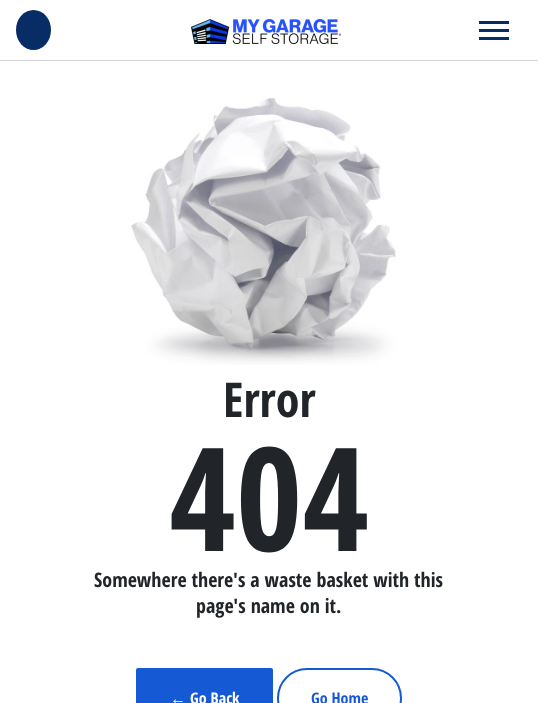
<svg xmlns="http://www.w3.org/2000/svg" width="538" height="703">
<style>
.a{font:bold 48px Open Sans Condensed;fill:#212529}
.b{font:bold 144px Open Sans Condensed;fill:#212529}
.c{font:bold 20px Open Sans Condensed;fill:#212529}
.d{font:bold 16px Liberation Sans;fill:#fff}
.e{font:bold 16px Open Sans Condensed;fill:#fff}
.f{font:bold 16px Open Sans Condensed;fill:#1659d4}
</style>
<rect width="100%" height="100%" fill="#fff"/>
<path fill="#ced4da" d="M0 60h538v1H0z"/>
<ellipse fill="#082c66" cx="33.5" cy="30" rx="17.5" ry="20"/>
<image href="1.png" x="191" y="19" width="150" height="25"/>
<path fill="#082c66" d="M479 21h30v3H479z"/>
<path fill="#082c66" d="M479 29h30v3H479z"/>
<path fill="#082c66" d="M479 37h30v3H479z"/>
<image href="2.png" x="131" y="98" width="265" height="267"/>
<rect fill="#1659d4" stroke="#1659d4" stroke-width="2" x="137" y="669" width="135" height="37" rx="1"/>
<rect fill="none" stroke="#1659d4" stroke-width="2" x="278" y="669" width="123" height="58" rx="29"/>
<text class="a" x="223" y="417">Error</text>
<text class="b" x="169" y="551">404</text>
<text class="c" x="94" y="587">Somewhere there's a waste basket with this</text>
<text class="c" x="196" y="613">page's name on it.</text>
<text class="d" x="170" y="704">←</text>
<text class="e" x="190" y="704">Go Back</text>
<text class="f" x="311" y="704">Go Home</text>
</svg>
